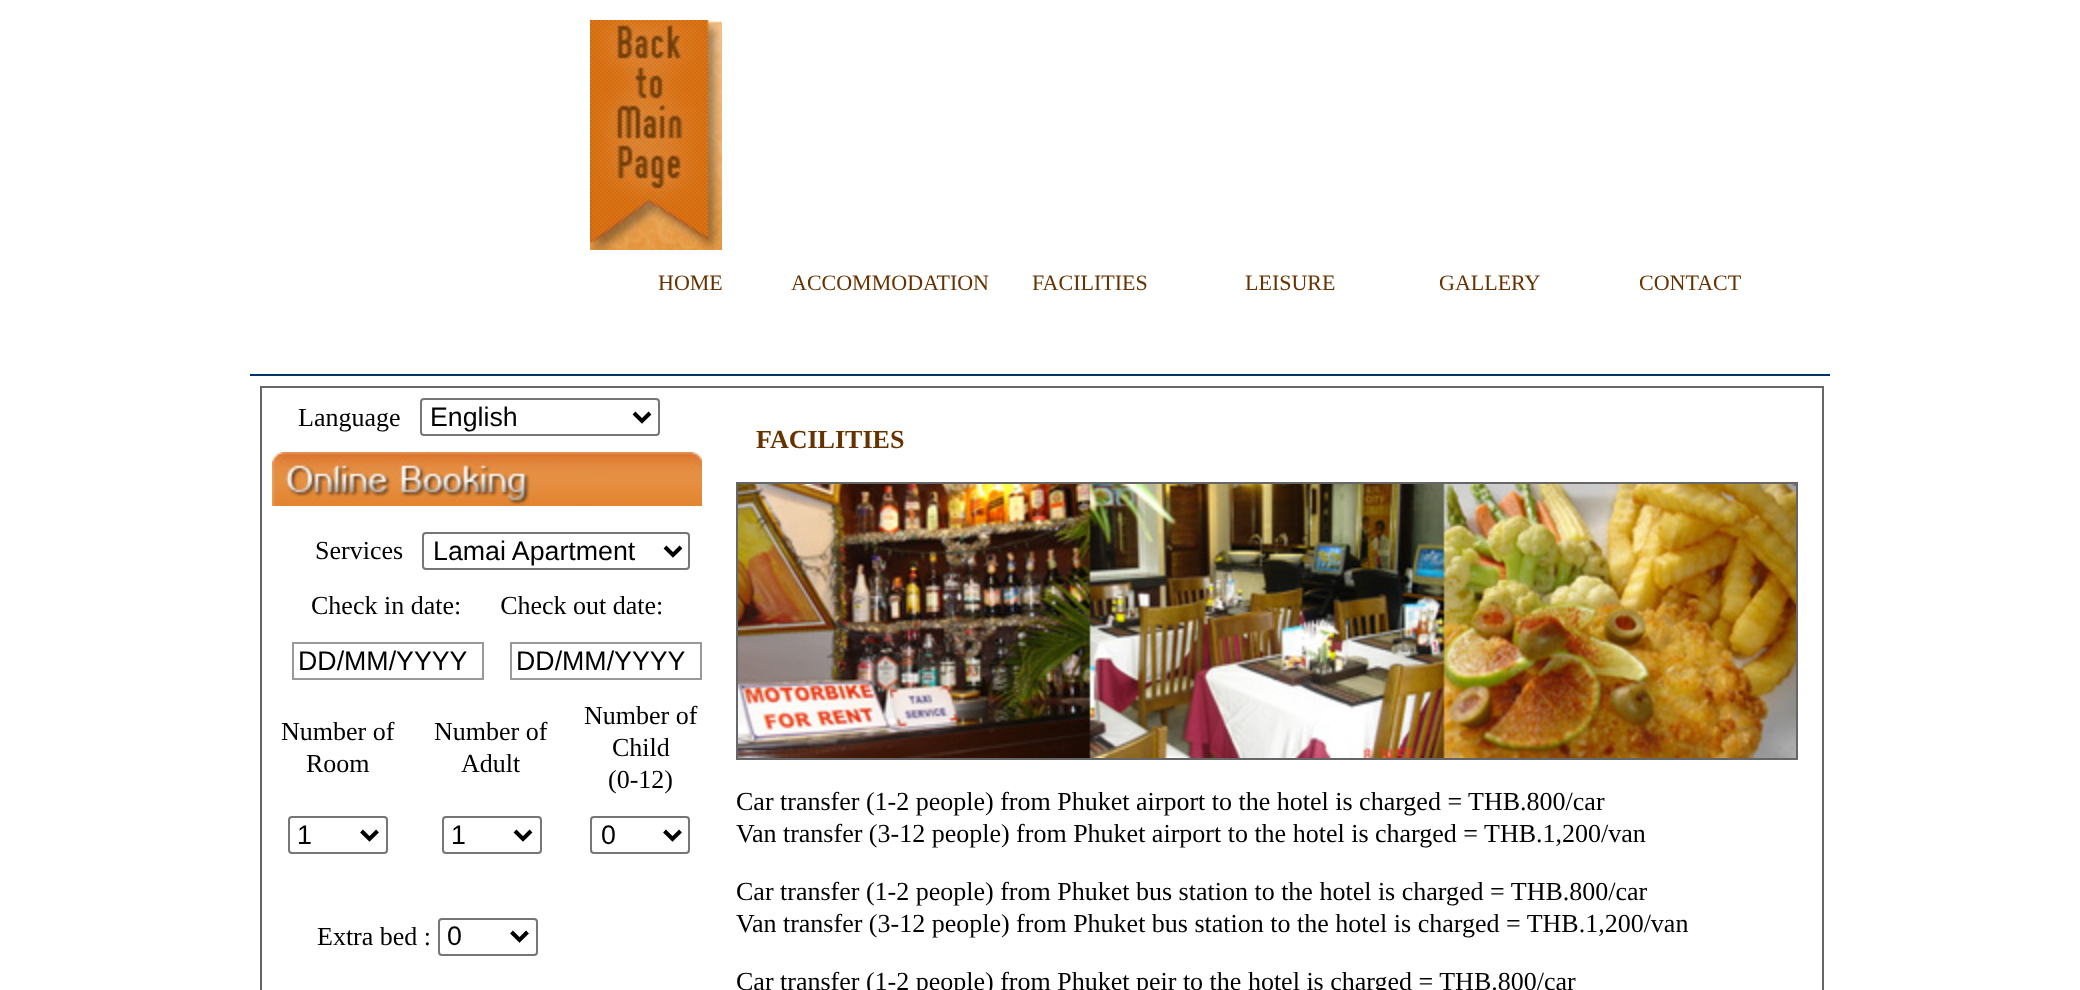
<svg xmlns="http://www.w3.org/2000/svg" width="2080" height="990">
<style>
.a{font:22px Liberation Serif;fill:#630}
.b{font:26px Liberation Serif;fill:#000}
.c{font:26.75px Liberation Sans;fill:#000}
.d{font:bold 26px Liberation Serif;fill:#630}
</style>
<rect width="100%" height="100%" fill="#fff"/>
<image href="1.png" x="590" y="20" width="132" height="230"/>
<path fill="#036" d="M250 374h1580v2H250z"/>
<path fill="none" stroke="#666" stroke-width="2" d="M261 387h1562v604H261z"/>
<rect fill="none" stroke="#767676" stroke-width="2" x="421" y="399" width="238" height="36" rx="3"/>
<path fill="none" stroke="#000" stroke-width="4" d="M634 413l8 8l8-8"/>
<image href="2.png" x="272" y="452" width="430" height="54"/>
<rect fill="none" stroke="#767676" stroke-width="2" x="423" y="533" width="266" height="36" rx="3"/>
<path fill="none" stroke="#000" stroke-width="4" d="M665 547l8 8l8-8"/>
<path fill="none" stroke="#999" stroke-width="2" d="M293 643h190v36H293z"/>
<path fill="none" stroke="#999" stroke-width="2" d="M511 643h190v36H511z"/>
<rect fill="none" stroke="#767676" stroke-width="2" x="289" y="817" width="98" height="36" rx="3"/>
<path fill="none" stroke="#000" stroke-width="4" d="M361.5 831l8 8l8-8"/>
<rect fill="none" stroke="#767676" stroke-width="2" x="443" y="817" width="98" height="36" rx="3"/>
<path fill="none" stroke="#000" stroke-width="4" d="M515 831l8 8l8-8"/>
<rect fill="none" stroke="#767676" stroke-width="2" x="591" y="817" width="98" height="36" rx="3"/>
<path fill="none" stroke="#000" stroke-width="4" d="M664.5 831l8 8l8-8"/>
<rect fill="none" stroke="#767676" stroke-width="2" x="439" y="919" width="98" height="36" rx="3"/>
<path fill="none" stroke="#000" stroke-width="4" d="M511.5 932l8 8l8-8"/>
<path fill="none" stroke="#666" stroke-width="2" d="M737 483h1060v276H737z"/>
<image href="3.png" x="738" y="484" width="1058" height="274"/>
<text class="a" x="658" y="290">HOME</text>
<text class="a" x="791" y="290">ACCOMMODATION</text>
<text class="a" x="1032" y="290">FACILITIES</text>
<text class="a" x="1245" y="290">LEISURE</text>
<text class="a" x="1439" y="290">GALLERY</text>
<text class="a" x="1639" y="290">CONTACT</text>
<text class="b" x="298" y="426">Language</text>
<text class="c" x="430" y="426">English</text>
<text class="b" x="315" y="559">Services</text>
<text class="c" x="433" y="560">Lamai Apartment</text>
<text class="b" xml:space="preserve" x="311" y="614">Check in date:      Check out date:</text>
<text class="c" x="298" y="670">DD/MM/YYYY</text>
<text class="c" x="516" y="670">DD/MM/YYYY</text>
<text class="b" x="281" y="740">Number of</text>
<text class="b" x="306" y="772">Room</text>
<text class="b" x="434" y="740">Number of</text>
<text class="b" x="461" y="772">Adult</text>
<text class="b" x="584" y="724">Number of</text>
<text class="b" x="612" y="756">Child</text>
<text class="b" x="608" y="788">(0-12)</text>
<text class="c" x="297" y="844">1</text>
<text class="c" x="451" y="844">1</text>
<text class="c" x="601" y="844">0</text>
<text class="b" x="317" y="945">Extra bed :</text>
<text class="c" x="447" y="945">0</text>
<text class="d" x="756" y="448">FACILITIES</text>
<text class="b" x="736" y="810">Car transfer (1-2 people) from Phuket airport to the hotel is charged = THB.800/car</text>
<text class="b" x="736" y="842">Van transfer (3-12 people) from Phuket airport to the hotel is charged = THB.1,200/van</text>
<text class="b" x="736" y="900">Car transfer (1-2 people) from Phuket bus station to the hotel is charged = THB.800/car</text>
<text class="b" x="736" y="932">Van transfer (3-12 people) from Phuket bus station to the hotel is charged = THB.1,200/van</text>
<text class="b" x="736" y="990">Car transfer (1-2 people) from Phuket peir to the hotel is charged = THB.800/car</text>
</svg>
